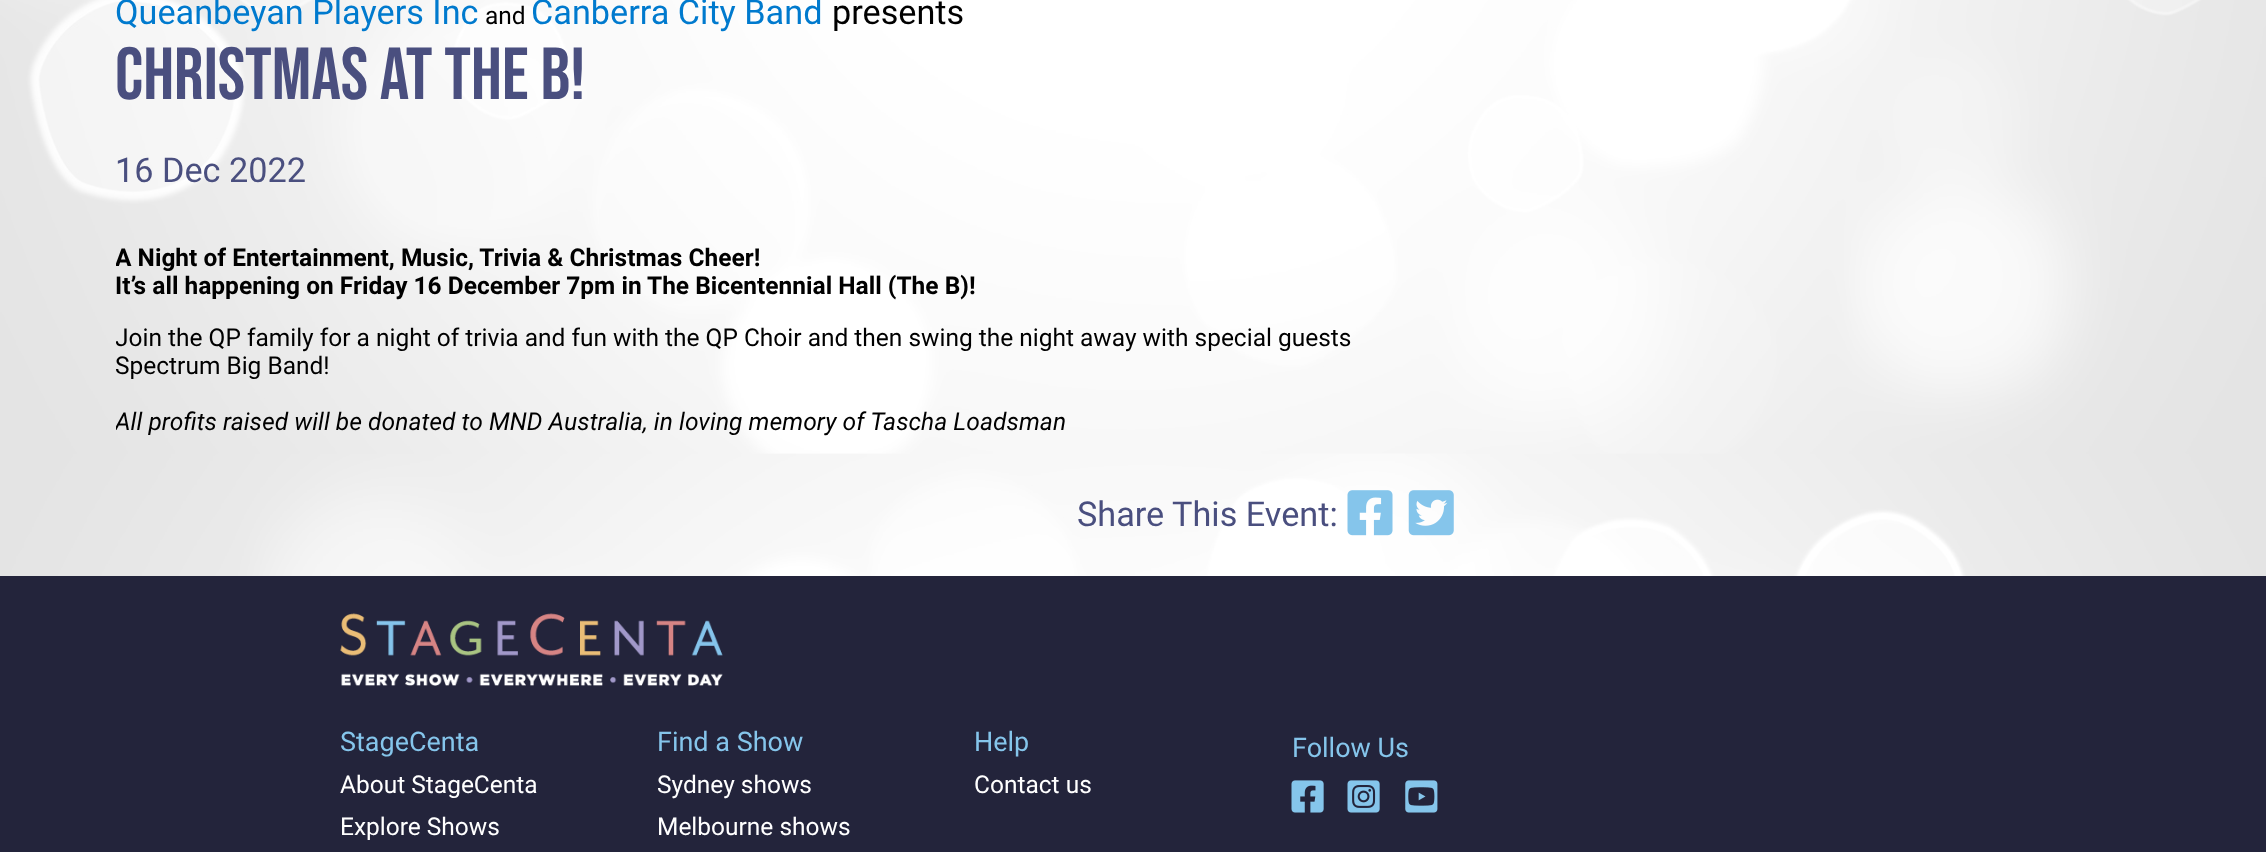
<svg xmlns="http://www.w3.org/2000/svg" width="2266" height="852">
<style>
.a{font:34.25px Roboto;fill:#007ace}
.b{font:24.5px Roboto;fill:#000}
.c{font:34.25px Roboto;fill:#000}
.d{font:73.5px Bebas Neue;fill:#4a4f7f}
.e{font:34.25px Roboto;fill:#4a4f7f}
.f{font:bold 24.5px Roboto;fill:#000}
.g{font:italic 24.5px Roboto;fill:#000}
.h{font:27px Roboto;fill:#85c5eb}
.i{font:24.5px Roboto;fill:#fff}
</style>
<defs>
<clipPath id="clip1"><path d="M116 219h1338v241H116z"/></clipPath>
</defs>
<rect width="100%" height="100%" fill="#fff"/>
<image href="1.png" x="0" y="0" width="2266" height="576"/>
<image href="2.png" x="1347" y="490" width="46" height="46"/>
<image href="3.png" x="1408" y="490" width="46" height="46"/>
<path fill="#23243b" d="M0 576h2266v276H0z"/>
<image href="4.png" x="340" y="613" width="383" height="73"/>
<image href="5.png" x="1291" y="780" width="33" height="33"/>
<image href="6.png" x="1347" y="780" width="33" height="33"/>
<image href="7.png" x="1405" y="780" width="33" height="33"/>
<text class="a" x="115" y="24">Queanbeyan Players Inc</text>
<text class="b" x="485" y="24">and</text>
<text class="a" x="531" y="24">Canberra City Band</text>
<text class="c" x="832" y="24">presents</text>
<text class="d" x="115" y="99">CHRISTMAS AT THE B!</text>
<text class="e" x="115" y="182">16 Dec 2022</text>
<g clip-path="url(#clip1)">
<text class="f" x="115" y="266">A Night of Entertainment, Music, Trivia &amp; Christmas Cheer!</text>
</g>
<text class="f" x="115" y="294">It’s all happening on Friday 16 December 7pm in The Bicentennial Hall (The B)!</text>
<g clip-path="url(#clip1)">
<text class="b" x="115" y="346">Join the QP family for a night of trivia and fun with the QP Choir and then swing the night away with special guests</text>
</g>
<text class="b" x="115" y="374">Spectrum Big Band!</text>
<g clip-path="url(#clip1)">
<text class="g" x="115" y="430">All profits raised will be donated to MND Australia, in loving memory of Tascha Loadsman</text>
</g>
<text class="e" x="1077" y="526">Share This Event:</text>
<text class="h" x="340" y="751">StageCenta</text>
<text class="i" x="340" y="793">About StageCenta</text>
<text class="i" x="340" y="835">Explore Shows</text>
<text class="h" x="657" y="751">Find a Show</text>
<text class="i" x="657" y="793">Sydney shows</text>
<text class="i" x="657" y="835">Melbourne shows</text>
<text class="h" x="974" y="751">Help</text>
<text class="i" x="974" y="793">Contact us</text>
<text class="h" x="1292" y="757">Follow Us</text>
</svg>
